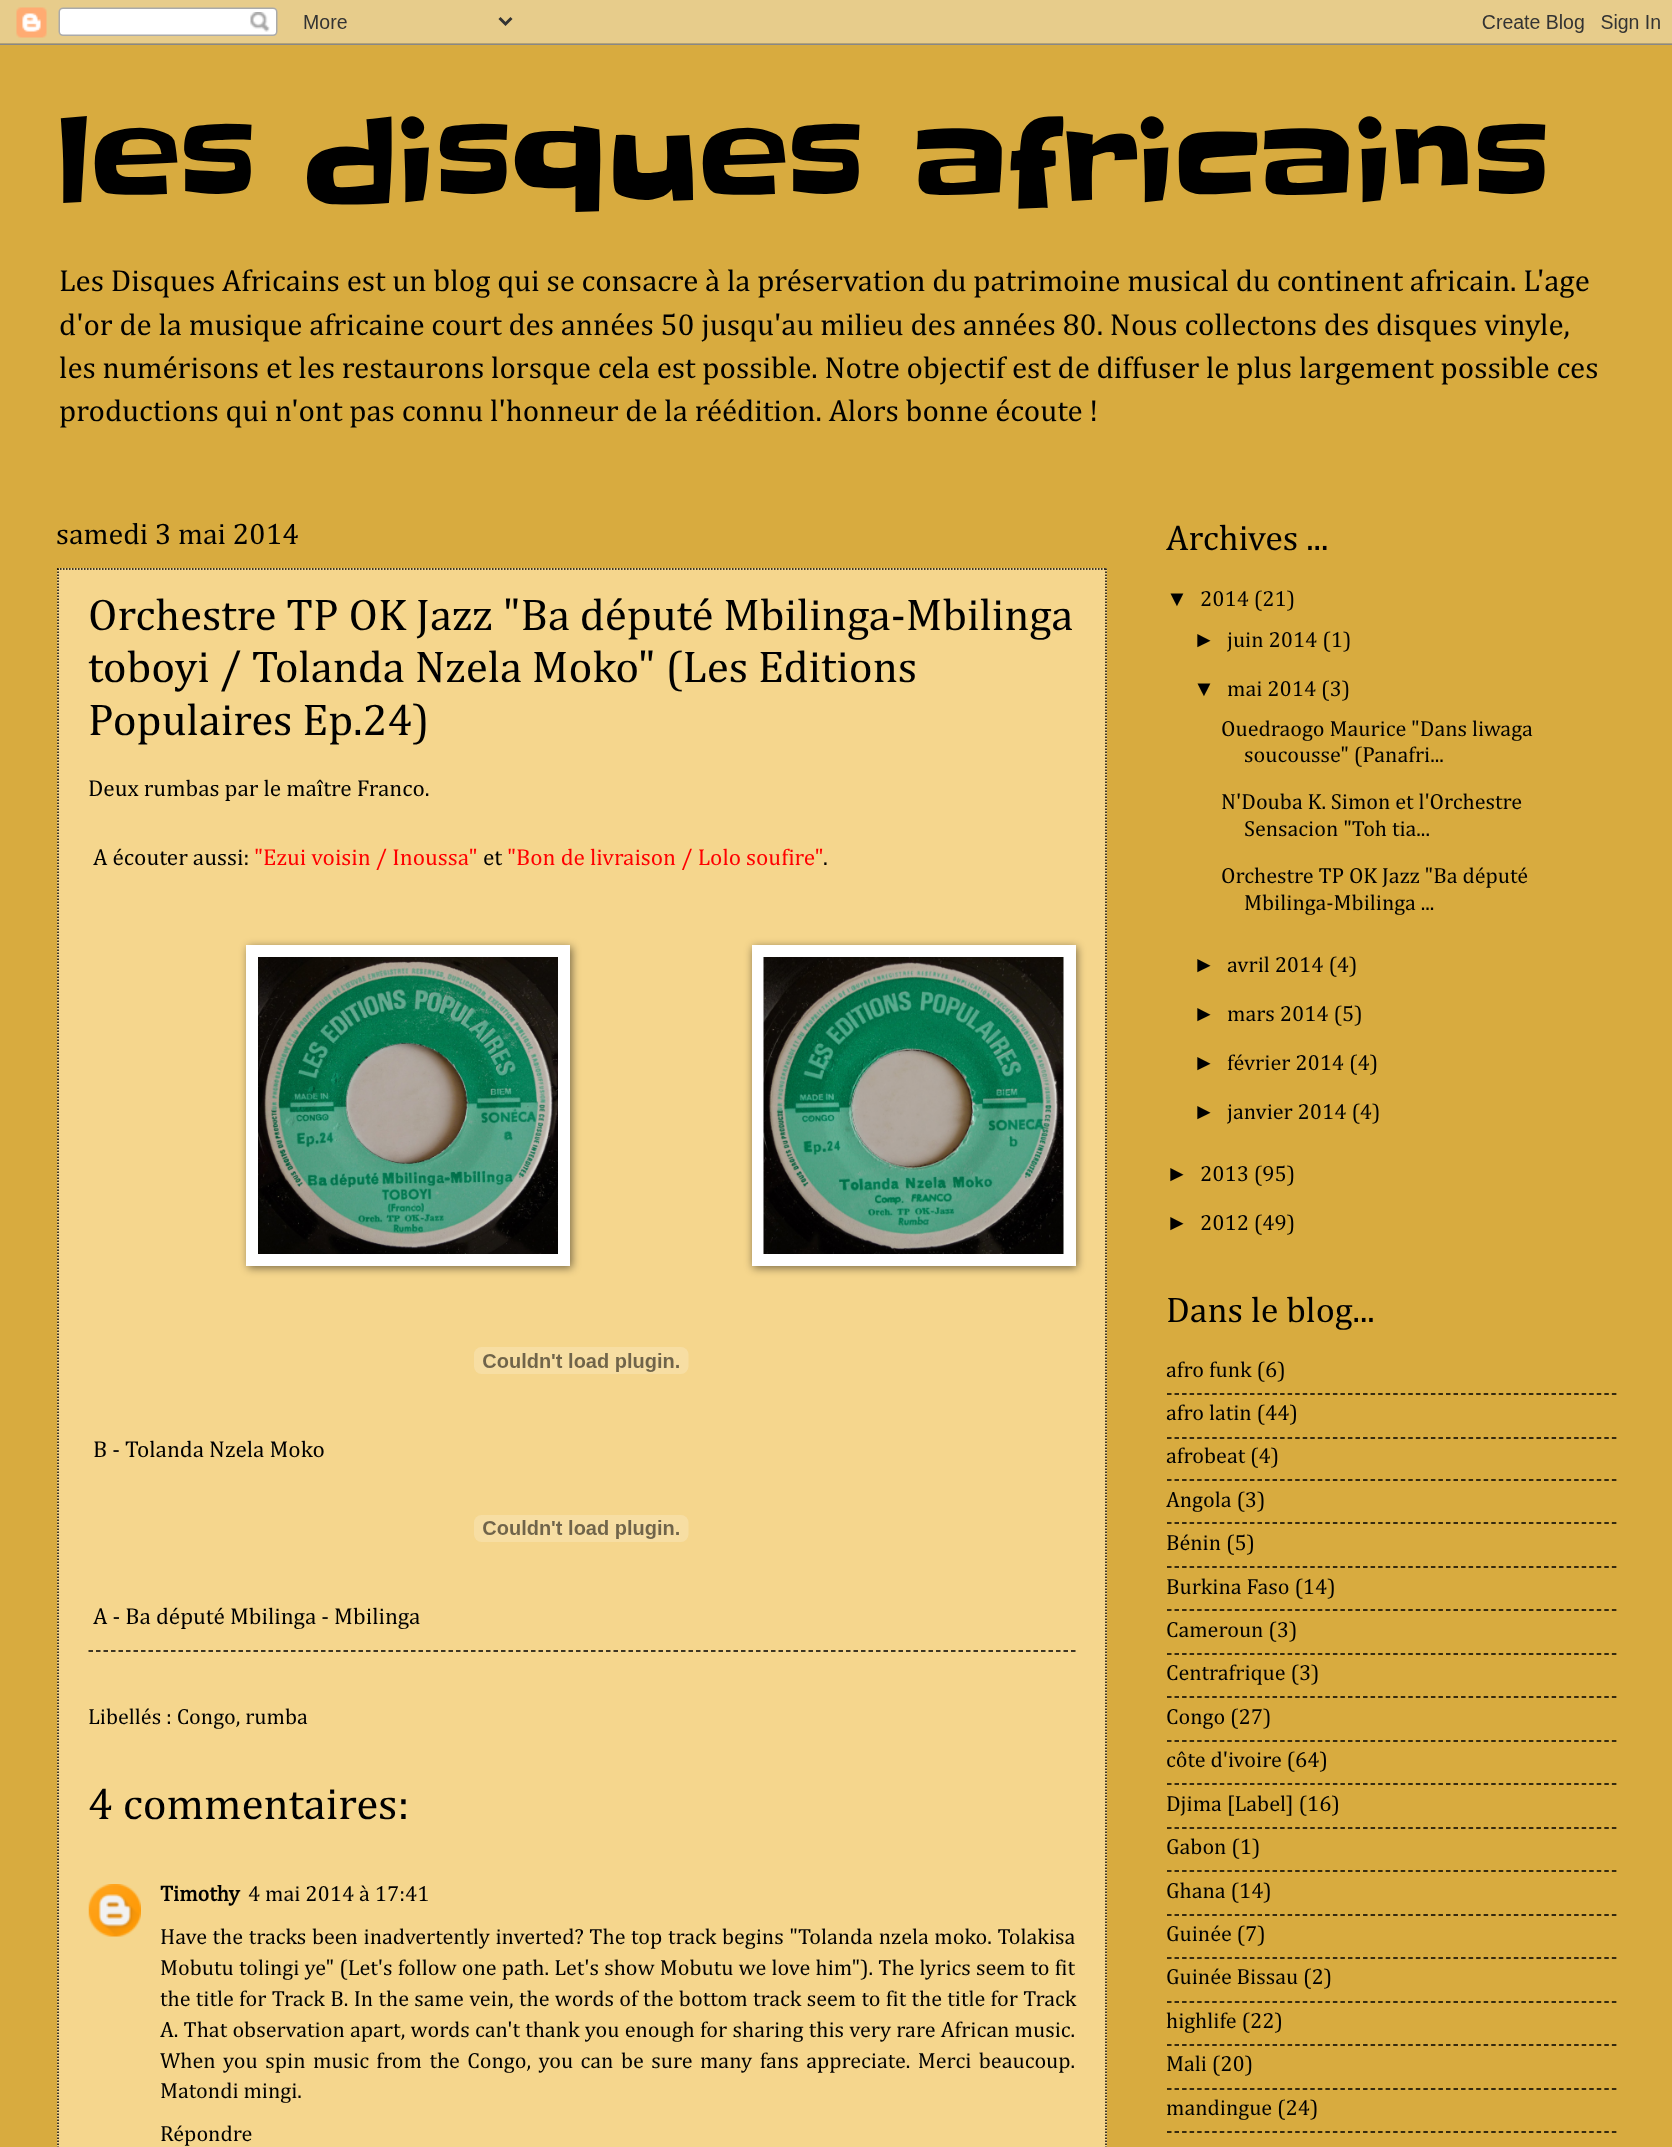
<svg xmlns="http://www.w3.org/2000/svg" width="1672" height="2147">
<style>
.a{font:120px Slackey;fill:#000}
.b{font:30.9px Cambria;fill:#000}
.c{font:30px Cambria;fill:#000}
.d{font:45px Cambria;fill:#000}
.e{font:23.2px Cambria;fill:#000}
.f{font:23.2px Cambria;fill:#f00}
.g{font:22.1px Cambria;fill:#000}
.h{font:bold 22.1px Cambria;fill:#000}
.i{font:36px Cambria;fill:#000}
.j{font:22.1px Liberation Sans;fill:#000}
</style>
<rect width="100%" height="100%" fill="#d8ab3f"/>
<path fill="#e8cd8c" d="M57 568h1050v1H57z"/>
<image href="1.png" x="0" y="0" width="1672" height="45"/>
<path fill="#f5d68d" d="M57 569h1050v1578H57z"/>
<path fill="none" stroke="#000" stroke-width="1.5" stroke-dasharray="1.5 1.5" d="M57 569h1050"/>
<path fill="none" stroke="#000" stroke-width="1.5" stroke-dasharray="1.5 1.5" d="M1106 568.5v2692.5"/>
<path fill="none" stroke="#000" stroke-width="1.5" stroke-dasharray="1.5 1.5" d="M58 568.5v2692.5"/>
<path fill="#00000080" filter="blur(4px)" d="M248 947h324v321H248z"/>
<path fill="#00000080" filter="blur(4px)" d="M753 947h324v321H753z"/>
<path fill="#fff" d="M752 945h324v321H752z"/>
<image href="2.png" x="763" y="957" width="301" height="297"/>
<path fill="#fff" d="M246 945h324v321H246z"/>
<image href="3.png" x="258" y="957" width="300" height="297"/>
<image href="4.png" x="474" y="1347" width="215" height="27"/>
<image href="5.png" x="474" y="1515" width="215" height="27"/>
<path fill="none" stroke="#000" stroke-width="1.5" stroke-dasharray="4.5 3" d="M88.5 1651h987"/>
<image href="6.png" x="88" y="1884" width="53" height="53"/>
<path fill="none" stroke="#000" stroke-width="1.5" stroke-dasharray="4.5 3.04" d="M1167 1394h450"/>
<path fill="none" stroke="#000" stroke-width="1.5" stroke-dasharray="4.5 3.04" d="M1167 1438h450"/>
<path fill="none" stroke="#000" stroke-width="1.5" stroke-dasharray="4.5 3.04" d="M1167 1480h450"/>
<path fill="none" stroke="#000" stroke-width="1.5" stroke-dasharray="4.5 3.04" d="M1167 1523h450"/>
<path fill="none" stroke="#000" stroke-width="1.5" stroke-dasharray="4.5 3.04" d="M1167 1567h450"/>
<path fill="none" stroke="#000" stroke-width="1.5" stroke-dasharray="4.5 3.04" d="M1167 1610h450"/>
<path fill="none" stroke="#000" stroke-width="1.5" stroke-dasharray="4.5 3.04" d="M1167 1654h450"/>
<path fill="none" stroke="#000" stroke-width="1.5" stroke-dasharray="4.5 3.04" d="M1167 1697h450"/>
<path fill="none" stroke="#000" stroke-width="1.5" stroke-dasharray="4.5 3.04" d="M1167 1741h450"/>
<path fill="none" stroke="#000" stroke-width="1.5" stroke-dasharray="4.5 3.04" d="M1167 1784h450"/>
<path fill="none" stroke="#000" stroke-width="1.5" stroke-dasharray="4.5 3.04" d="M1167 1828h450"/>
<path fill="none" stroke="#000" stroke-width="1.5" stroke-dasharray="4.5 3.04" d="M1167 1871h450"/>
<path fill="none" stroke="#000" stroke-width="1.5" stroke-dasharray="4.5 3.04" d="M1167 1915h450"/>
<path fill="none" stroke="#000" stroke-width="1.5" stroke-dasharray="4.5 3.04" d="M1167 1958h450"/>
<path fill="none" stroke="#000" stroke-width="1.5" stroke-dasharray="4.5 3.04" d="M1167 2002h450"/>
<path fill="none" stroke="#000" stroke-width="1.5" stroke-dasharray="4.5 3.04" d="M1167 2045h450"/>
<path fill="none" stroke="#000" stroke-width="1.5" stroke-dasharray="4.5 3.04" d="M1167 2089h450"/>
<path fill="none" stroke="#000" stroke-width="1.5" stroke-dasharray="4.5 3.04" d="M1167 2132h450"/>
<text class="a" x="56" y="206">les disques africains</text>
<text class="b" x="59" y="291">Les Disques Africains est un blog qui se consacre à la préservation du patrimoine musical du continent africain. L'age</text>
<text class="b" x="59" y="335">d'or de la musique africaine court des années 50 jusqu'au milieu des années 80. Nous collectons des disques vinyle,</text>
<text class="b" x="59" y="378">les numérisons et les restaurons lorsque cela est possible. Notre objectif est de diffuser le plus largement possible ces</text>
<text class="b" x="59" y="421">productions qui n'ont pas connu l'honneur de la réédition. Alors bonne écoute !</text>
<text class="c" x="56" y="544">samedi 3 mai 2014</text>
<text class="d" x="88" y="630">Orchestre TP OK Jazz "Ba député Mbilinga-Mbilinga</text>
<text class="d" x="88" y="682">toboyi / Tolanda Nzela Moko" (Les Editions</text>
<text class="d" x="88" y="735">Populaires Ep.24)</text>
<text class="e" x="88" y="796">Deux rumbas par le maître Franco.</text>
<text class="e" x="93" y="865">A écouter aussi:</text>
<text class="f" x="254" y="865">"Ezui voisin / Inoussa"</text>
<text class="e" x="483" y="865">et</text>
<text class="f" x="507" y="865">"Bon de livraison / Lolo soufire"</text>
<text class="e" x="823" y="865">.</text>
<text class="e" x="93" y="1457">B - Tolanda Nzela Moko</text>
<text class="e" x="93" y="1624">A - Ba député Mbilinga - Mbilinga</text>
<text class="g" x="88" y="1724">Libellés : Congo, rumba</text>
<text class="d" x="88" y="1819">4 commentaires:</text>
<text class="h" x="160" y="1901">Timothy</text>
<text class="g" x="248" y="1901">4 mai 2014 à 17:41</text>
<text class="g" x="160" y="1944" word-spacing="0.75">Have the tracks been inadvertently inverted? The top track begins "Tolanda nzela moko. Tolakisa</text>
<text class="g" x="160" y="1975" word-spacing="0.3">Mobutu tolingi ye" (Let's follow one path. Let's show Mobutu we love him"). The lyrics seem to fit</text>
<text class="g" x="160" y="2006" word-spacing="0.5">the title for Track B. In the same vein, the words of the bottom track seem to fit the title for Track</text>
<text class="g" x="160" y="2037" word-spacing="0.4">A. That observation apart, words can't thank you enough for sharing this very rare African music.</text>
<text class="g" x="160" y="2068" word-spacing="2.6">When you spin music from the Congo, you can be sure many fans appreciate. Merci beaucoup.</text>
<text class="g" x="160" y="2098">Matondi mingi.</text>
<text class="g" x="160" y="2141">Répondre</text>
<text class="i" x="1166" y="550">Archives ...</text>
<text class="j" x="1166" y="606">▼</text>
<text class="g" x="1200" y="606">2014 (21)</text>
<text class="j" x="1193" y="647">►</text>
<text class="g" x="1227" y="647">juin 2014 (1)</text>
<text class="j" x="1193" y="696">▼</text>
<text class="g" x="1227" y="696">mai 2014 (3)</text>
<text class="g" x="1221" y="736">Ouedraogo Maurice "Dans liwaga</text>
<text class="g" x="1244" y="762">soucousse" (Panafri...</text>
<text class="g" x="1221" y="809">N'Douba K. Simon et l'Orchestre</text>
<text class="g" x="1244" y="836">Sensacion "Toh tia...</text>
<text class="g" x="1221" y="883">Orchestre TP OK Jazz "Ba député</text>
<text class="g" x="1244" y="910">Mbilinga-Mbilinga ...</text>
<text class="j" x="1193" y="972">►</text>
<text class="g" x="1227" y="972">avril 2014 (4)</text>
<text class="j" x="1193" y="1021">►</text>
<text class="g" x="1227" y="1021">mars 2014 (5)</text>
<text class="j" x="1193" y="1070">►</text>
<text class="g" x="1227" y="1070">février 2014 (4)</text>
<text class="j" x="1193" y="1119">►</text>
<text class="g" x="1227" y="1119">janvier 2014 (4)</text>
<text class="j" x="1166" y="1181">►</text>
<text class="g" x="1200" y="1181">2013 (95)</text>
<text class="j" x="1166" y="1230">►</text>
<text class="g" x="1200" y="1230">2012 (49)</text>
<text class="i" x="1166" y="1322">Dans le blog...</text>
<text class="g" x="1166" y="1377">afro funk (6)</text>
<text class="g" x="1166" y="1420">afro latin (44)</text>
<text class="g" x="1166" y="1463">afrobeat (4)</text>
<text class="g" x="1166" y="1507">Angola (3)</text>
<text class="g" x="1166" y="1550">Bénin (5)</text>
<text class="g" x="1166" y="1594">Burkina Faso (14)</text>
<text class="g" x="1166" y="1637">Cameroun (3)</text>
<text class="g" x="1166" y="1680">Centrafrique (3)</text>
<text class="g" x="1166" y="1724">Congo (27)</text>
<text class="g" x="1166" y="1767">côte d'ivoire (64)</text>
<text class="g" x="1166" y="1811">Djima [Label] (16)</text>
<text class="g" x="1166" y="1854">Gabon (1)</text>
<text class="g" x="1166" y="1898">Ghana (14)</text>
<text class="g" x="1166" y="1941">Guinée (7)</text>
<text class="g" x="1166" y="1984">Guinée Bissau (2)</text>
<text class="g" x="1166" y="2028">highlife (22)</text>
<text class="g" x="1166" y="2071">Mali (20)</text>
<text class="g" x="1166" y="2115">mandingue (24)</text>
</svg>
